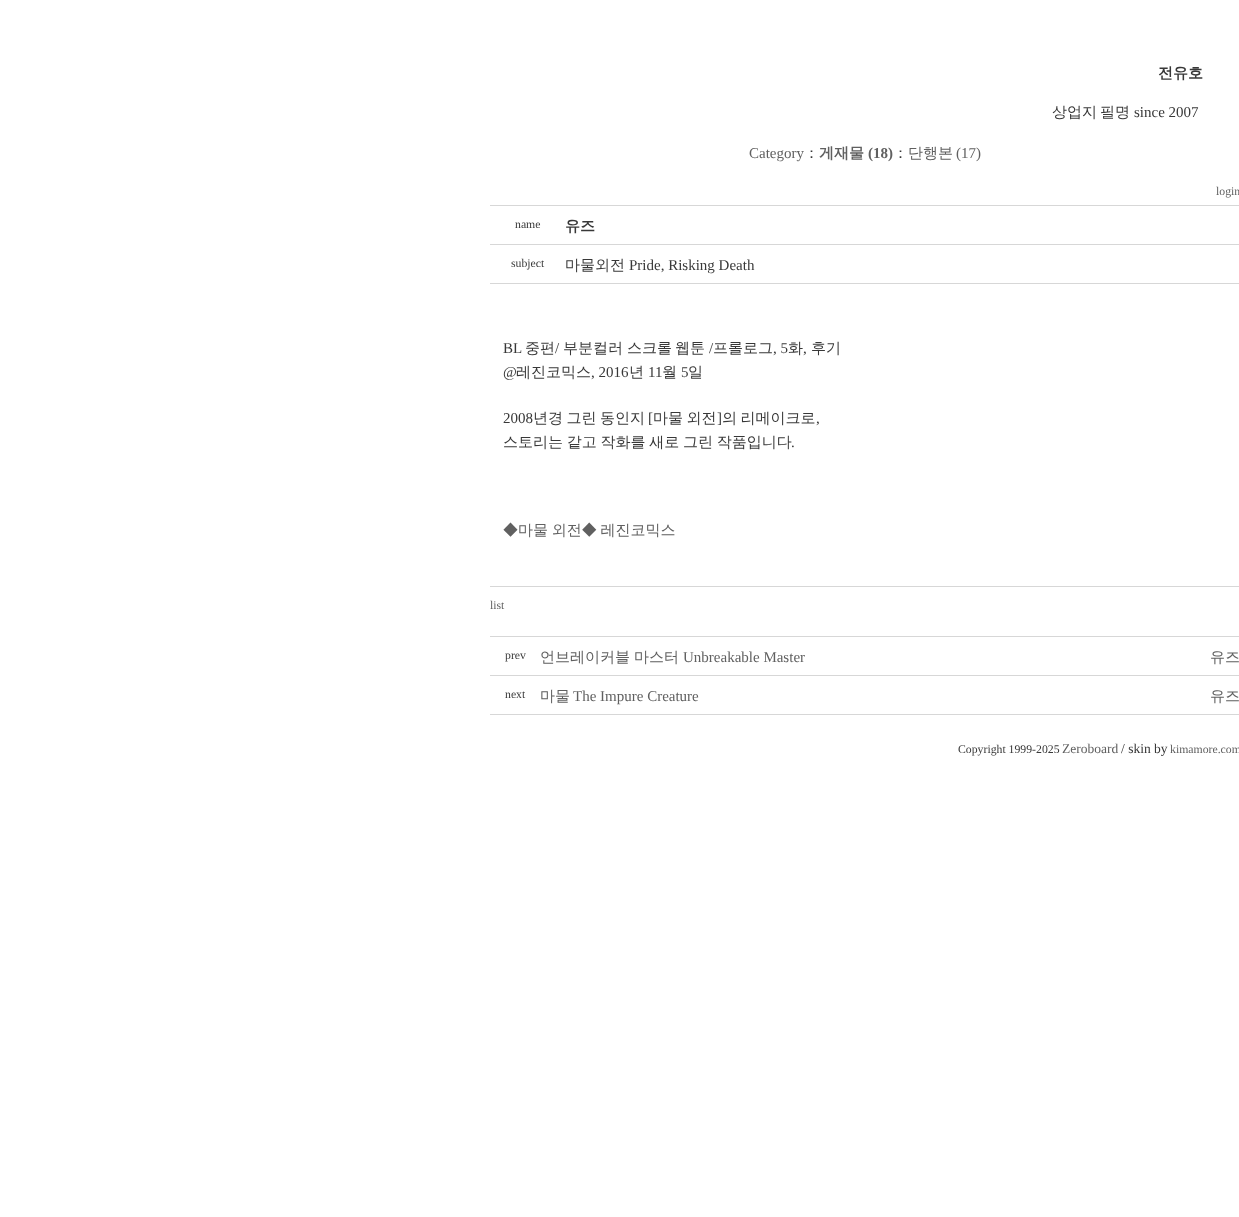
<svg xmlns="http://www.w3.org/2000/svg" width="1239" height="1217">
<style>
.a{font:bold 15px WenQuanYi Zen Hei;fill:#383838}
.b{font:500 15px WenQuanYi Zen Hei;fill:#383838}
.c{font:15px Liberation Serif;fill:#383838}
.d{font:15px Liberation Serif;fill:#606060}
.e{font:bold 15px WenQuanYi Zen Hei;fill:#606060}
.f{font:bold 15px Liberation Serif;fill:#606060}
.g{font:500 15px WenQuanYi Zen Hei;fill:#606060}
.h{font:11.75px Liberation Serif;fill:#606060}
.i{font:11.75px Liberation Serif;fill:#383838}
.j{font:13.5px Liberation Serif;fill:#606060}
.k{font:13.5px Liberation Serif;fill:#383838}
</style>
<rect width="100%" height="100%" fill="#fff"/>
<path fill="#d7d7d7" d="M490 205h749v1H490z"/>
<path fill="#d7d7d7" d="M490 244h749v1H490z"/>
<path fill="#d7d7d7" d="M490 283h749v1H490z"/>
<path fill="#d7d7d7" d="M490 586h749v1H490z"/>
<path fill="#d7d7d7" d="M490 636h749v1H490z"/>
<path fill="#d7d7d7" d="M490 675h749v1H490z"/>
<path fill="#d7d7d7" d="M490 714h749v1H490z"/>
<text class="a" x="1158" y="78">전유호</text>
<text class="b" x="1052" y="117">상업지</text>
<text class="b" x="1100" y="117">필명</text>
<text class="c" x="1134" y="117">since 2007</text>
<text class="d" x="749" y="158">Category</text>
<text class="b" x="804" y="158">：</text>
<text class="e" x="819" y="158">게재물</text>
<text class="f" x="868" y="158">(18)</text>
<text class="b" x="893" y="158">：</text>
<text class="g" x="908" y="158">단행본</text>
<text class="d" x="956" y="158">(17)</text>
<text class="h" x="1216" y="195">login</text>
<text class="i" x="515" y="228">name</text>
<text class="a" x="565" y="231">유즈</text>
<text class="i" x="511" y="267">subject</text>
<text class="b" x="565" y="270">마물외전</text>
<text class="c" x="629" y="270">Pride, Risking Death</text>
<text class="c" x="503" y="353">BL</text>
<text class="b" x="525" y="353">중편</text>
<text class="c" x="555" y="353">/</text>
<text class="b" x="563" y="353">부분컬러</text>
<text class="b" x="627" y="353">스크롤</text>
<text class="b" x="675" y="353">웹툰</text>
<text class="c" x="709" y="353">/</text>
<text class="b" x="713" y="353">프롤로그</text>
<text class="c" x="773" y="353">, 5</text>
<text class="b" x="788" y="353">화</text>
<text class="c" x="803" y="353">,</text>
<text class="b" x="811" y="353">후기</text>
<text class="c" x="503" y="377">@</text>
<text class="b" x="516" y="377">레진코믹스</text>
<text class="c" x="591" y="377">, 2016</text>
<text class="b" x="629" y="377">년</text>
<text class="c" x="648" y="377">11</text>
<text class="b" x="662" y="377">월</text>
<text class="c" x="681" y="377">5</text>
<text class="b" x="688" y="377">일</text>
<text class="c" x="503" y="423">2008</text>
<text class="b" x="533" y="423" word-spacing="-1">년경 그린 동인지</text>
<text class="c" x="648" y="423">[</text>
<text class="b" x="653" y="423" word-spacing="-1">마물 외전</text>
<text class="c" x="717" y="423">]</text>
<text class="b" x="722" y="423" word-spacing="-1">의 리메이크로</text>
<text class="c" x="816" y="423">,</text>
<text class="b" x="503" y="447" word-spacing="-0.75">스토리는 같고 작화를 새로 그린 작품입니다</text>
<text class="c" x="791" y="447">.</text>
<text class="g" x="503" y="535" word-spacing="-0.75">◆마물 외전◆ 레진코믹스</text>
<text class="h" x="490" y="609">list</text>
<text class="i" x="505" y="659">prev</text>
<text class="g" x="540" y="662">언브레이커블</text>
<text class="g" x="634" y="662">마스터</text>
<text class="d" x="683" y="662">Unbreakable Master</text>
<text class="g" x="1210" y="662">유즈</text>
<text class="i" x="505" y="698">next</text>
<text class="g" x="540" y="701">마물</text>
<text class="d" x="573" y="701">The Impure Creature</text>
<text class="g" x="1210" y="701">유즈</text>
<text class="i" x="958" y="753">Copyright 1999-2025</text>
<text class="j" x="1062" y="753">Zeroboard</text>
<text class="k" x="1121" y="753">/ skin by</text>
<text class="h" x="1170" y="753">kimamore.com</text>
</svg>
